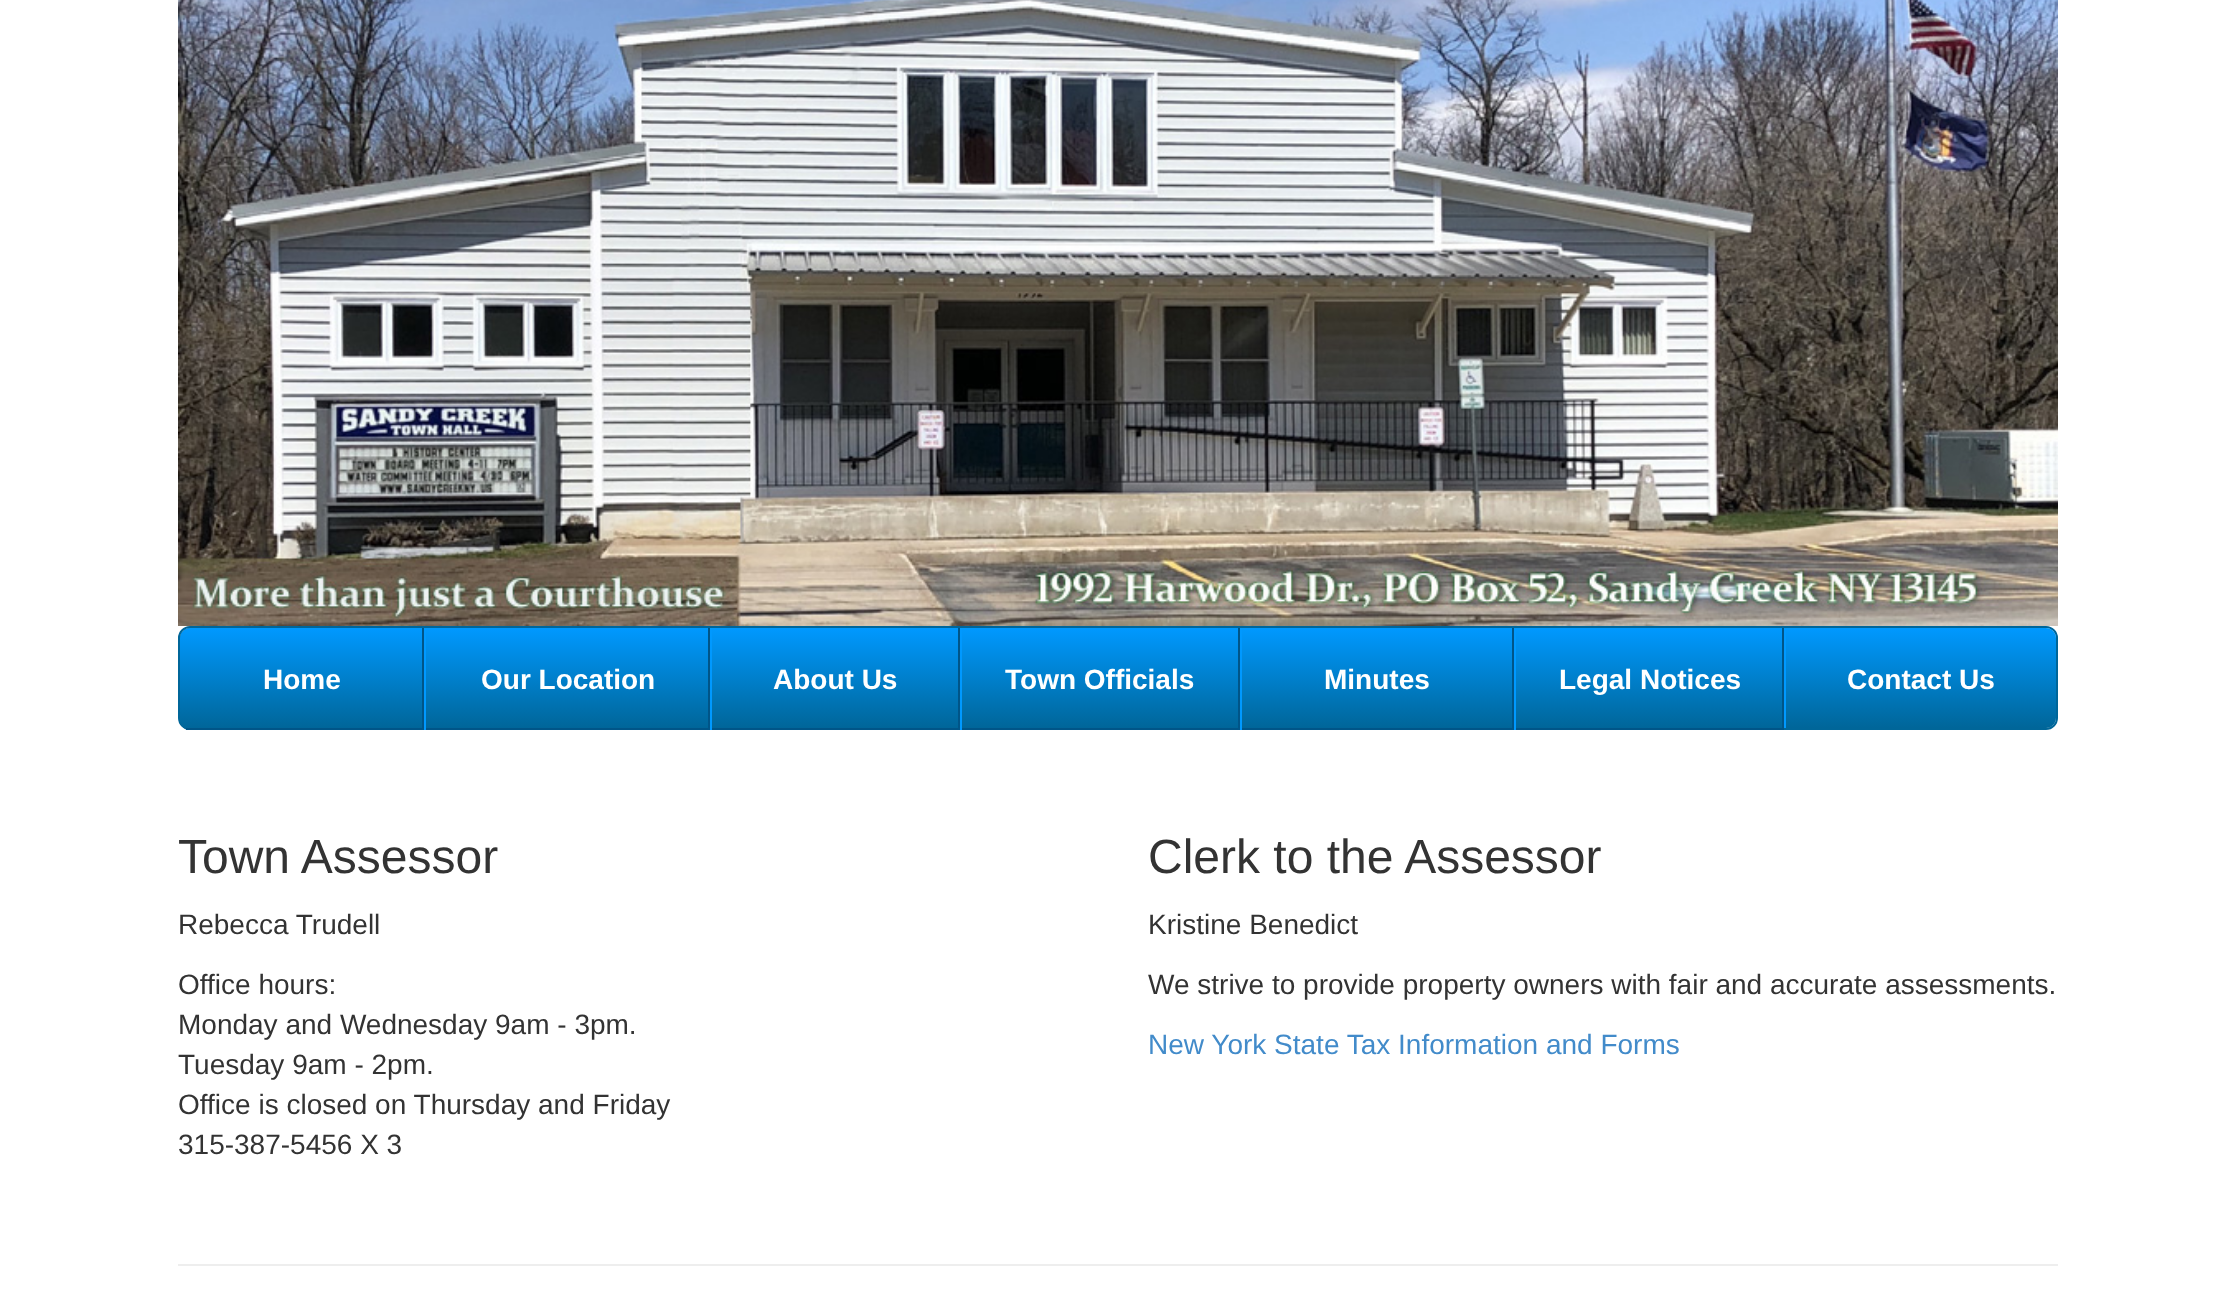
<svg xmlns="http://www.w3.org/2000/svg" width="2235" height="1314">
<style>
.a{font:bold 28px Liberation Sans;fill:#fff}
.b{font:48px Liberation Sans;fill:#333}
.c{font:28px Liberation Sans;fill:#333}
.d{font:28px Liberation Sans;fill:#428bca}
</style>
<defs>
<clipPath id="clip1"><path d="M190 628h234v102h-234c-5.5 0-10-4.5-10-10v-82c0-5.5 4.5-10 10-10z"/></clipPath>
<linearGradient id="g1" gradientUnits="userSpaceOnUse" x1="301" y1="628" x2="301" y2="728"><stop offset="0" stop-color="#09f"/><stop offset="1" stop-color="#069"/></linearGradient>
<linearGradient id="g2" gradientUnits="userSpaceOnUse" x1="567" y1="628" x2="567" y2="728"><stop offset="0" stop-color="#09f"/><stop offset="1" stop-color="#069"/></linearGradient>
<linearGradient id="g3" gradientUnits="userSpaceOnUse" x1="835" y1="628" x2="835" y2="728"><stop offset="0" stop-color="#09f"/><stop offset="1" stop-color="#069"/></linearGradient>
<linearGradient id="g4" gradientUnits="userSpaceOnUse" x1="1100" y1="628" x2="1100" y2="728"><stop offset="0" stop-color="#09f"/><stop offset="1" stop-color="#069"/></linearGradient>
<linearGradient id="g5" gradientUnits="userSpaceOnUse" x1="1377" y1="628" x2="1377" y2="728"><stop offset="0" stop-color="#09f"/><stop offset="1" stop-color="#069"/></linearGradient>
<linearGradient id="g6" gradientUnits="userSpaceOnUse" x1="1649" y1="628" x2="1649" y2="728"><stop offset="0" stop-color="#09f"/><stop offset="1" stop-color="#069"/></linearGradient>
<linearGradient id="g7" gradientUnits="userSpaceOnUse" x1="1921" y1="628" x2="1921" y2="728"><stop offset="0" stop-color="#09f"/><stop offset="1" stop-color="#069"/></linearGradient>
</defs>
<rect width="100%" height="100%" fill="#fff"/>
<image href="1.png" x="178" y="0" width="1880" height="626"/>
<rect fill="none" stroke="#069" stroke-width="2" x="179" y="627" width="1878" height="102" rx="11"/>
<path fill="#069" d="M190 628h234v102h-234c-5.5 0-10-4.5-10-10v-82c0-5.5 4.5-10 10-10z"/>
<g clip-path="url(#clip1)">
<path fill="url(#g1)" d="M190 628h234v100h-244v-90c0-5.5 4.5-10 10-10z"/>
</g>
<path fill="#058" d="M422 628h2v102H422z"/>
<path fill="#058" d="M186 728h238v2H186z"/>
<path fill="url(#g2)" d="M426 628h282v100H426z"/>
<path fill="#058" d="M708 628h2v102H708z"/>
<path fill="#058" d="M424 728h286v2H424z"/>
<path fill="#09f" d="M424 628h2v102H424z"/>
<path fill="url(#g3)" d="M712 628h246v100H712z"/>
<path fill="#058" d="M958 628h2v102H958z"/>
<path fill="#058" d="M710 728h250v2H710z"/>
<path fill="#09f" d="M710 628h2v102H710z"/>
<path fill="url(#g4)" d="M962 628h276v100H962z"/>
<path fill="#058" d="M1238 628h2v102H1238z"/>
<path fill="#058" d="M960 728h280v2H960z"/>
<path fill="#09f" d="M960 628h2v102H960z"/>
<path fill="url(#g5)" d="M1242 628h270v100H1242z"/>
<path fill="#058" d="M1512 628h2v102H1512z"/>
<path fill="#058" d="M1240 728h274v2H1240z"/>
<path fill="#09f" d="M1240 628h2v102H1240z"/>
<path fill="url(#g6)" d="M1516 628h266v100H1516z"/>
<path fill="#058" d="M1782 628h2v102H1782z"/>
<path fill="#058" d="M1514 728h270v2H1514z"/>
<path fill="#09f" d="M1514 628h2v102H1514z"/>
<path fill="url(#g7)" d="M1784 628h262c5.5 0 10 4.5 10 10v80c0 5.5-4.5 10-10 10h-262z"/>
<path fill="#09f" d="M1784 628h2v100H1784z"/>
<path fill="#eee" d="M178 1264h1880v2H178z"/>
<text class="a" x="263" y="689">Home</text>
<text class="a" x="481" y="689">Our Location</text>
<text class="a" x="773" y="689">About Us</text>
<text class="a" x="1005" y="689">Town Officials</text>
<text class="a" x="1324" y="689">Minutes</text>
<text class="a" x="1559" y="689">Legal Notices</text>
<text class="a" x="1847" y="689">Contact Us</text>
<text class="b" x="178" y="873">Town Assessor</text>
<text class="c" x="178" y="934">Rebecca Trudell</text>
<text class="c" x="178" y="994">Office hours:</text>
<text class="c" x="178" y="1034">Monday and Wednesday 9am - 3pm.</text>
<text class="c" x="178" y="1074">Tuesday 9am - 2pm.</text>
<text class="c" x="178" y="1114">Office is closed on Thursday and Friday</text>
<text class="c" x="178" y="1154">315-387-5456 X 3</text>
<text class="b" x="1148" y="873">Clerk to the Assessor</text>
<text class="c" x="1148" y="934">Kristine Benedict</text>
<text class="c" x="1148" y="994">We strive to provide property owners with fair and accurate assessments.</text>
<text class="d" x="1148" y="1054">New York State Tax Information and Forms</text>
</svg>
